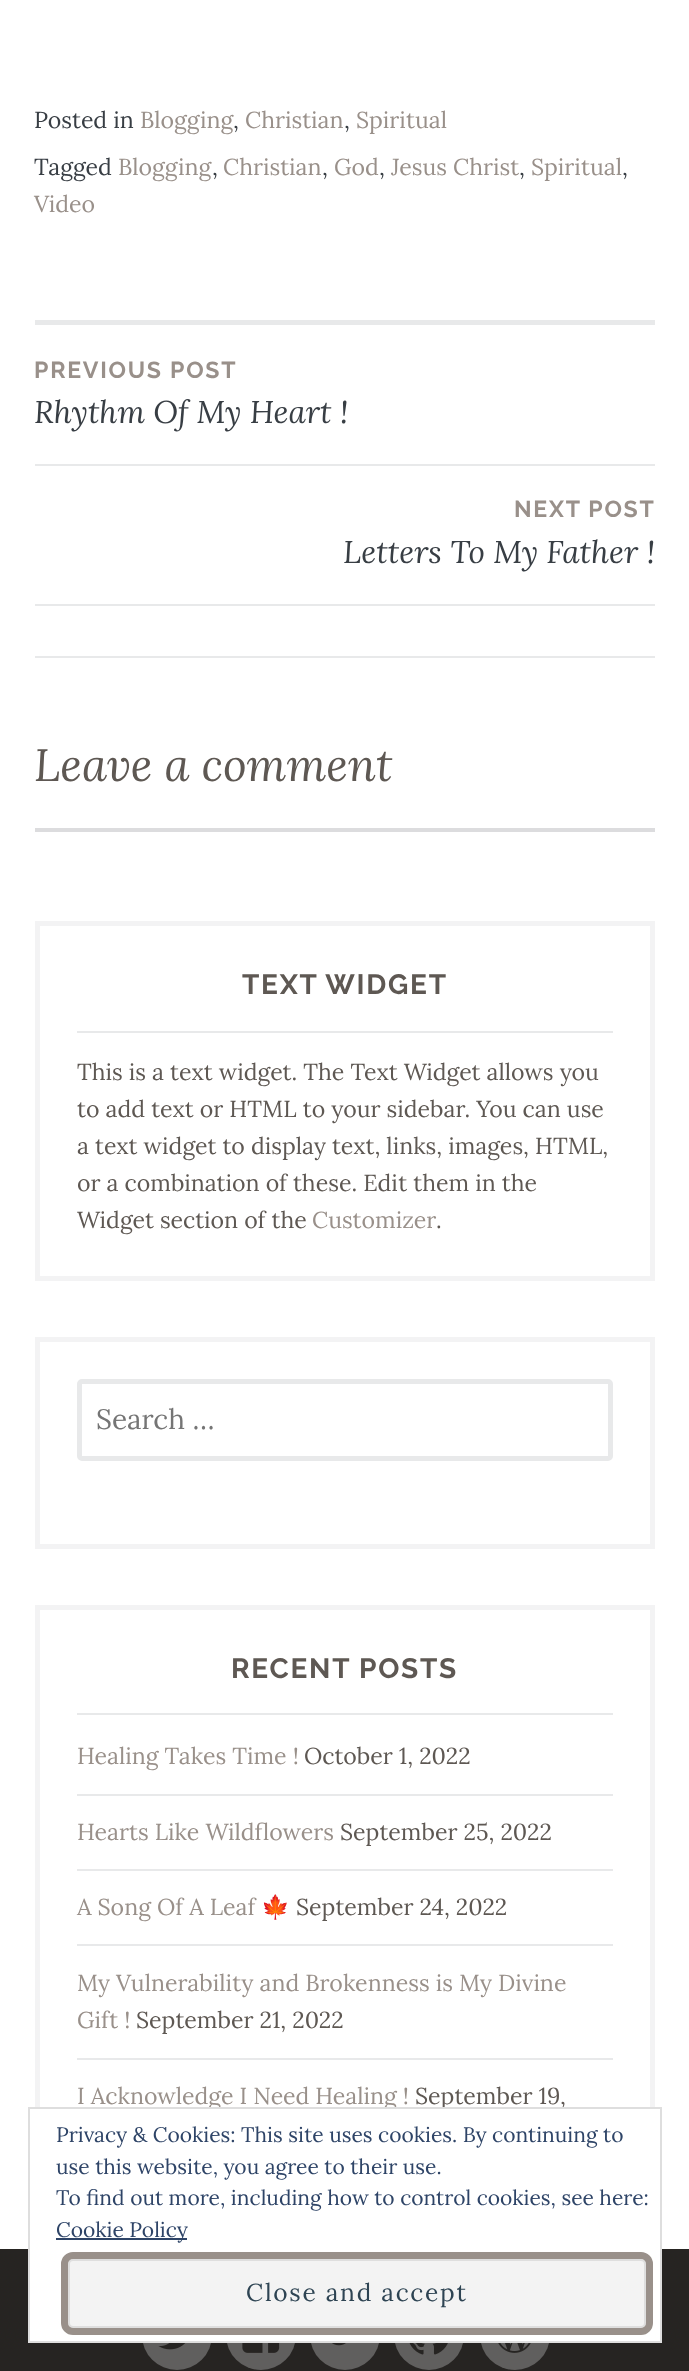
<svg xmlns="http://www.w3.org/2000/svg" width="689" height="2371">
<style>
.a{font:23.1px Lora;fill:#383e44}
.b{font:23.1px Lora;fill:#99908a}
.c{font:bold 23.1px Raleway;letter-spacing:1.75px;fill:#99908a}
.d{font:italic 31.5px Lora;fill:#383e44}
.e{font:italic 45.5px Lora;fill:#5e5853}
.f{font:bold 28px Raleway;letter-spacing:1.75px;fill:#5e5853}
.g{font:23.1px Lora;fill:#5e5853}
.h{font:28px Lora;fill:#757575}
.i{font:23.1px Noto Color Emoji;fill:#99908a}
.j{font:21px Lora;fill:#2e4467}
.k{font:24.5px Lora;letter-spacing:1.75px;fill:#2e4453}
</style>
<rect width="100%" height="100%" fill="#fff"/>
<path fill="#e8e9ea" d="M35 320h620v5H35z"/>
<path fill="#e8e9ea" d="M35 604h620v2H35z"/>
<path fill="#e8e9ea" d="M35 464h620v2H35z"/>
<path fill="#e8e9ea" d="M35 656h620v2H35z"/>
<path fill="#dcdcde" d="M35 828h620v4H35z"/>
<path fill="none" stroke="#f3f3f4" stroke-width="5" d="M37.5 923.5h615v355H37.5z"/>
<path fill="#e8e9ea" d="M77 1031h536v2H77z"/>
<path fill="none" stroke="#f3f3f4" stroke-width="5" d="M37.5 1339.5h615v207H37.5z"/>
<rect fill="none" stroke="#e8e9ea" stroke-width="5" x="79.5" y="1381.5" width="531" height="77" rx="2.5"/>
<path fill="none" stroke="#f3f3f4" stroke-width="5" d="M37.5 1607.5h615v583H37.5z"/>
<path fill="#e8e9ea" d="M77 1713h536v2H77z"/>
<path fill="#e8e9ea" d="M77 1794h536v2H77z"/>
<path fill="#e8e9ea" d="M77 1869h536v2H77z"/>
<path fill="#e8e9ea" d="M77 1944h536v2H77z"/>
<path fill="#e8e9ea" d="M77 2058h536v2H77z"/>
<path fill="#262422" d="M0 2249h689v122H0z"/>
<circle fill="#605f5e" cx="177" cy="2335" r="35"/>
<image href="1.png" x="158" y="2343" width="28" height="7"/>
<circle fill="#605f5e" cx="261" cy="2335" r="35"/>
<image href="2.png" x="242" y="2343" width="38" height="10"/>
<circle fill="#605f5e" cx="345" cy="2335" r="35"/>
<image href="3.png" x="332" y="2343" width="14" height="3"/>
<circle fill="#605f5e" cx="429" cy="2335" r="35"/>
<image href="4.png" x="409" y="2343" width="39" height="12"/>
<circle fill="#605f5e" cx="515" cy="2335" r="35"/>
<image href="5.png" x="498" y="2343" width="33" height="10"/>
<text class="a" x="34" y="128">Posted in</text>
<text class="b" x="140" y="128">Blogging</text>
<text class="a" x="233" y="128">,</text>
<text class="b" x="245" y="128">Christian</text>
<text class="a" x="344" y="128">,</text>
<text class="b" x="356" y="128">Spiritual</text>
<text class="a" x="34" y="175">Tagged</text>
<text class="b" x="118" y="175">Blogging</text>
<text class="a" x="212" y="175">,</text>
<text class="b" x="223" y="175">Christian</text>
<text class="a" x="322" y="175">,</text>
<text class="b" x="334" y="175">God</text>
<text class="a" x="379" y="175">,</text>
<text class="b" x="391" y="175">Jesus Christ</text>
<text class="a" x="519" y="175">,</text>
<text class="b" x="531" y="175">Spiritual</text>
<text class="a" x="622" y="175">,</text>
<text class="b" x="34" y="212">Video</text>
<text class="c" x="34" y="378">PREVIOUS POST</text>
<text class="d" x="34" y="423">Rhythm Of My Heart !</text>
<text class="c" x="514" y="517">NEXT POST</text>
<text class="d" x="343" y="563">Letters To My Father !</text>
<text class="e" x="34" y="781">Leave a comment</text>
<text class="f" x="242" y="994">TEXT WIDGET</text>
<text class="g" x="77" y="1080">This is a text widget. The Text Widget allows you</text>
<text class="g" x="77" y="1117">to add text or HTML to your sidebar. You can use</text>
<text class="g" x="77" y="1154">a text widget to display text, links, images, HTML,</text>
<text class="g" x="77" y="1191">or a combination of these. Edit them in the</text>
<text class="g" x="77" y="1228">Widget section of the</text>
<text class="b" x="312" y="1228">Customizer</text>
<text class="g" x="436" y="1228">.</text>
<text class="h" x="96" y="1429">Search …</text>
<text class="f" x="231" y="1678">RECENT POSTS</text>
<text class="b" x="77" y="1764">Healing Takes Time !</text>
<text class="g" x="304" y="1764">October 1, 2022</text>
<text class="b" x="77" y="1840">Hearts Like Wildflowers</text>
<text class="g" x="340" y="1840">September 25, 2022</text>
<text class="b" x="77" y="1915">A Song Of A Leaf</text>
<text class="i" x="261" y="1915">🍁</text>
<text class="g" x="296" y="1915">September 24, 2022</text>
<text class="b" x="77" y="1991">My Vulnerability and Brokenness is My Divine</text>
<text class="b" x="77" y="2028">Gift !</text>
<text class="g" x="136" y="2028">September 21, 2022</text>
<text class="b" x="77" y="2104">I Acknowledge I Need Healing !</text>
<text class="g" x="415" y="2104">September 19,</text>
<path fill="#fff" stroke="#dedede" stroke-width="2" d="M29 2108h632v234H29z"/>
<text class="j" x="56" y="2142">Privacy &amp; Cookies: This site uses cookies. By continuing to</text>
<text class="j" x="56" y="2174">use this website, you agree to their use.</text>
<text class="j" x="56" y="2205">To find out more, including how to control cookies, see here:</text>
<path fill="#2e4467" d="M56 2238h131v2H56z"/>
<text class="j" x="56" y="2237">Cookie Policy</text>
<rect fill="#f3f3f3" stroke="#dedede" stroke-width="2" x="69" y="2260" width="576" height="67" rx="4"/>
<rect fill="none" stroke="#99908a" stroke-width="7" x="64.5" y="2255.5" width="585" height="76" rx="8.5"/>
<text class="k" x="246" y="2301">Close and accept</text>
</svg>
